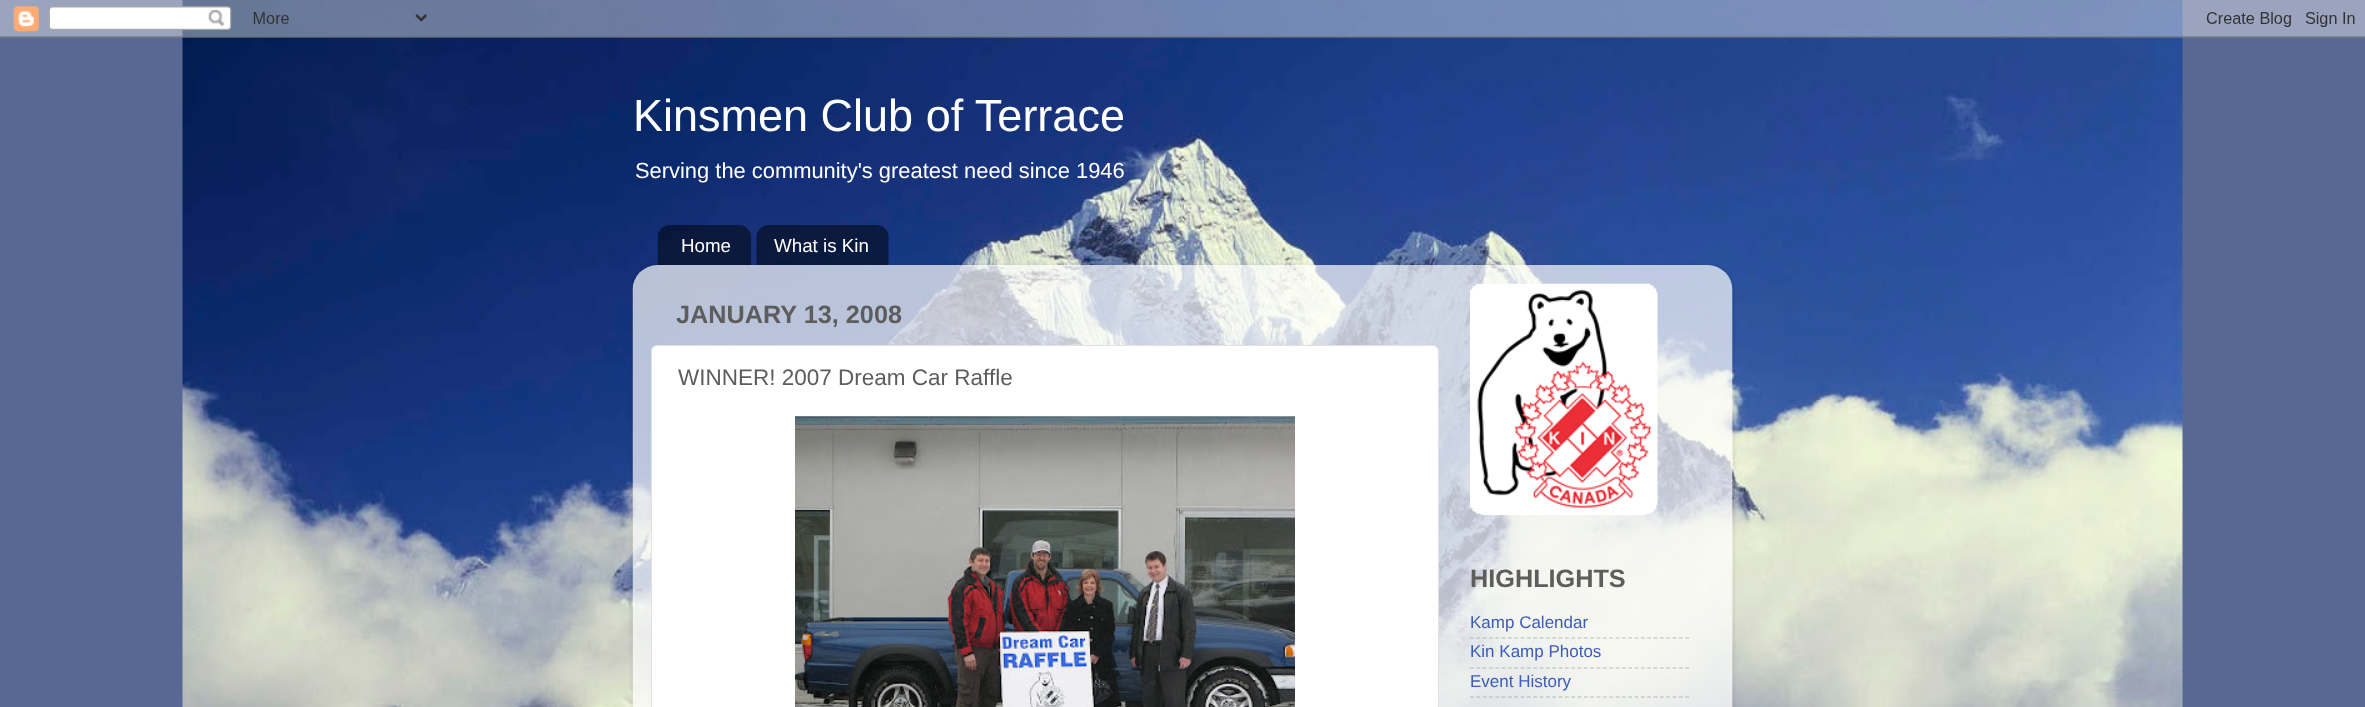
<svg xmlns="http://www.w3.org/2000/svg" width="2365" height="707">
<style>
.a{font:45px Liberation Sans;fill:#fff}
.b{font:21.9px Liberation Sans;fill:#fff}
.c{font:18.75px Liberation Sans;fill:#fff}
.d{font:bold 25.25px Liberation Sans;fill:#5d5d5d}
.e{font:22.5px Liberation Sans;fill:#5d5d5d}
.f{font:17px Liberation Sans;fill:#3c5db4}
</style>
<defs>
<clipPath id="clip1"><path d="M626 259h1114v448h-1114zm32 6h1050c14 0 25 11 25 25v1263h-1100v-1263c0-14 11-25 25-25z" clip-rule="evenodd"/></clipPath>
</defs>
<rect width="100%" height="100%" fill="#576894"/>
<image href="1.png" x="182" y="0" width="2001" height="707"/>
<image href="2.png" x="0" y="0" width="2365" height="38"/>
<image href="3.png" x="657" y="225" width="94" height="40"/>
<image href="4.png" x="756" y="225" width="133" height="40"/>
<g clip-path="url(#clip1)">
<rect fill="#00000026" filter="blur(2px)" x="633" y="266" width="1100" height="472" rx="25"/>
</g>
<image href="5.png" x="632" y="265" width="1101" height="442"/>
<rect fill="#fff" stroke="#e1e1e1" x="651.5" y="345.5" width="787" height="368" rx="5.5"/>
<image href="6.png" x="795" y="416" width="500" height="291"/>
<image href="7.png" x="1470" y="283" width="188" height="232"/>
<path fill="none" stroke="#80808080" stroke-width="1.2" stroke-dasharray="3.75 2.58" d="M1470 638h219"/>
<path fill="none" stroke="#80808080" stroke-width="1.2" stroke-dasharray="3.75 2.58" d="M1470 668h219"/>
<path fill="none" stroke="#80808080" stroke-width="1.2" stroke-dasharray="3.75 2.58" d="M1470 697h219"/>
<text class="a" x="633" y="131">Kinsmen Club of Terrace</text>
<text class="b" x="635" y="178">Serving the community's greatest need since 1946</text>
<text class="c" x="681" y="252">Home</text>
<text class="c" x="774" y="252">What is Kin</text>
<text class="d" x="676" y="323">JANUARY 13, 2008</text>
<text class="e" x="678" y="385">WINNER! 2007 Dream Car Raffle</text>
<text class="d" x="1470" y="587">HIGHLIGHTS</text>
<text class="f" x="1470" y="628">Kamp Calendar</text>
<text class="f" x="1470" y="657">Kin Kamp Photos</text>
<text class="f" x="1470" y="687">Event History</text>
</svg>
